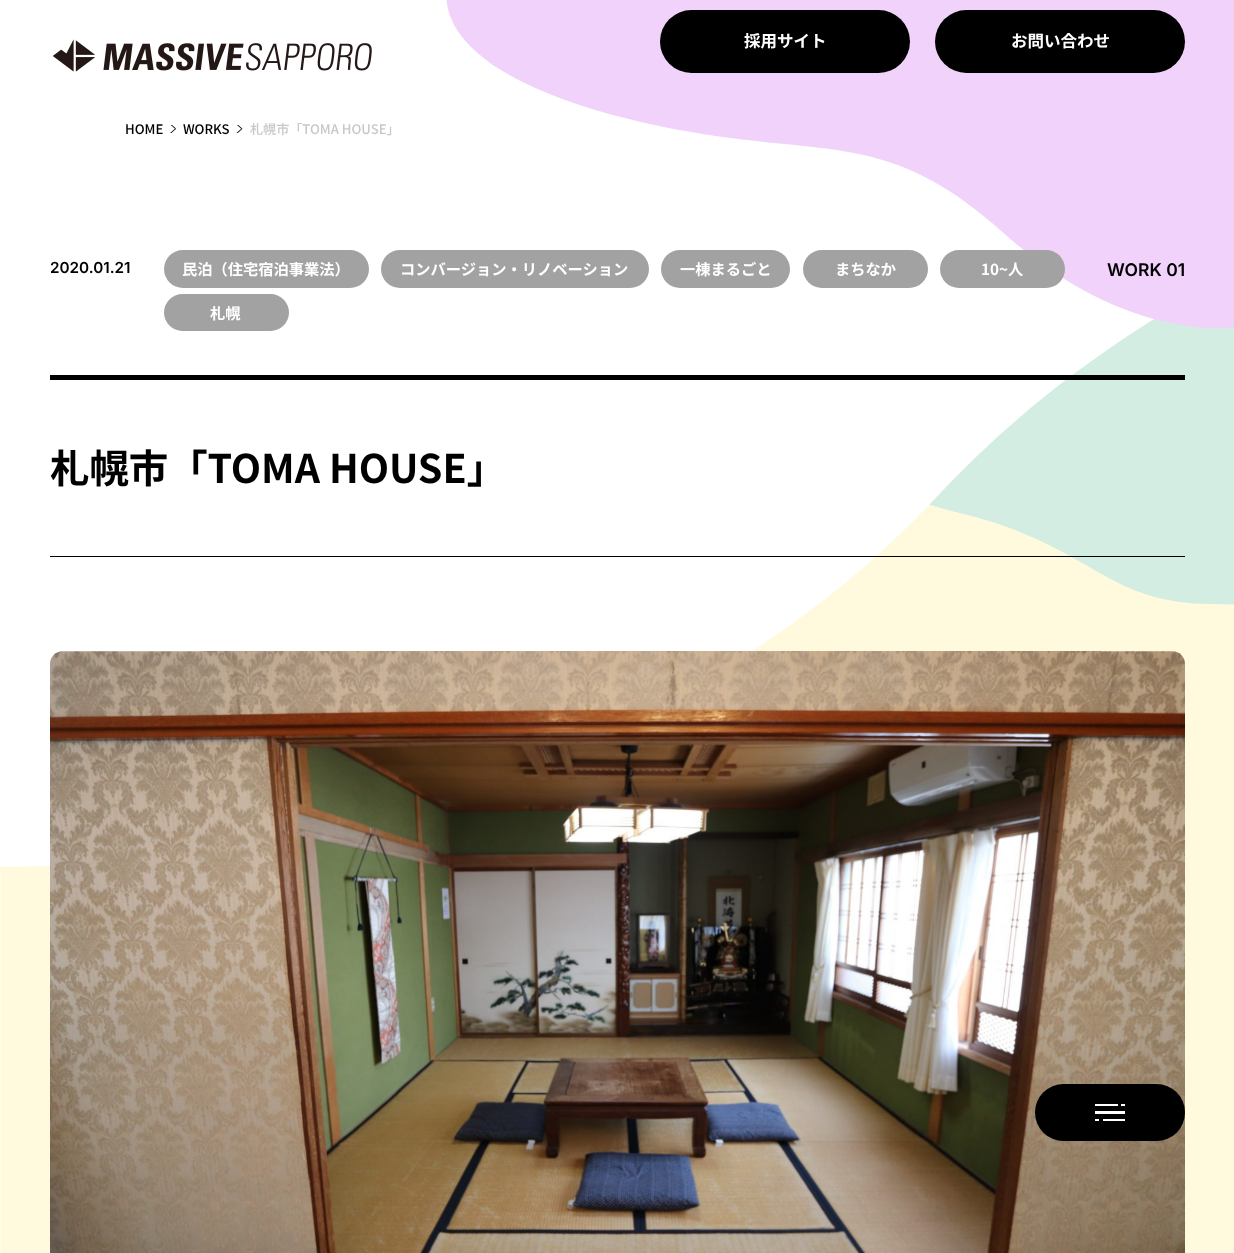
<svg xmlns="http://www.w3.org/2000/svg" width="1234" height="1253">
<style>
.a{font:bold 16.5px Noto Sans JP;fill:#fff}
.b{font:500 13.1px Noto Sans JP;fill:#000}
.c{font:500 13.1px Noto Sans JP;fill:#c8c8c8}
.d{font:600 15.25px Inter;fill:#000}
.e{font:bold 15.25px Noto Sans JP;fill:#fff}
.f{font:600 17.5px Inter;fill:#000}
.g{font:bold 39.4px Noto Sans JP;fill:#000}
</style>
<rect width="100%" height="100%" fill="#fff"/>
<image href="1.png" x="0" y="0" width="1234" height="1253"/>
<image href="2.png" x="52" y="39" width="320" height="33"/>
<rect fill="#000" x="660" y="10" width="250" height="63" rx="31.5"/>
<rect fill="#000" x="935" y="10" width="250" height="63" rx="31.5"/>
<image href="3.png" x="170" y="125" width="6" height="8"/>
<image href="4.png" x="236" y="125" width="7" height="8"/>
<rect fill="#a2a2a2" x="164" y="250" width="205" height="38" rx="19"/>
<rect fill="#a2a2a2" x="381" y="250" width="268" height="38" rx="19"/>
<rect fill="#a2a2a2" x="661" y="250" width="129" height="38" rx="19"/>
<rect fill="#a2a2a2" x="803" y="250" width="125" height="38" rx="19"/>
<rect fill="#a2a2a2" x="940" y="250" width="125" height="38" rx="19"/>
<rect fill="#a2a2a2" x="164" y="294" width="125" height="37" rx="18.5"/>
<path fill="#000" d="M50 375h1135v5H50z"/>
<path fill="#000" d="M50 556h1135v1H50z"/>
<image href="5.png" x="50" y="651" width="1135" height="602"/>
<rect fill="#000" x="1035" y="1084" width="150" height="57" rx="28.5"/>
<path fill="#fff" d="M1095 1104h23v2H1095z"/>
<path fill="#fff" d="M1121 1104h4v2h-4z"/>
<path fill="#fff" d="M1095 1111h30v3H1095z"/>
<path fill="#fff" d="M1103 1119h22v2H1103z"/>
<path fill="#fff" d="M1095 1119h4v2h-4z"/>
<text class="a" x="744" y="47">採用サイト</text>
<text class="a" x="1011" y="47">お問い合わせ</text>
<text class="b" x="125" y="134">HOME</text>
<text class="b" x="183" y="134">WORKS</text>
<text class="c" x="250" y="134">札幌市「TOMA HOUSE」</text>
<text class="d" x="50" y="273">2020.01.21</text>
<text class="e" x="182" y="275">民泊（住宅宿泊事業法）</text>
<text class="e" x="400" y="275">コンバージョン・リノベーション</text>
<text class="e" x="680" y="275">一棟まるごと</text>
<text class="e" x="835" y="275">まちなか</text>
<text class="e" x="981" y="275">10~人</text>
<text class="e" x="210" y="319">札幌</text>
<text class="f" x="1107" y="276">WORK 01</text>
<text class="g" x="50" y="483">札幌市「TOMA HOUSE」</text>
</svg>
